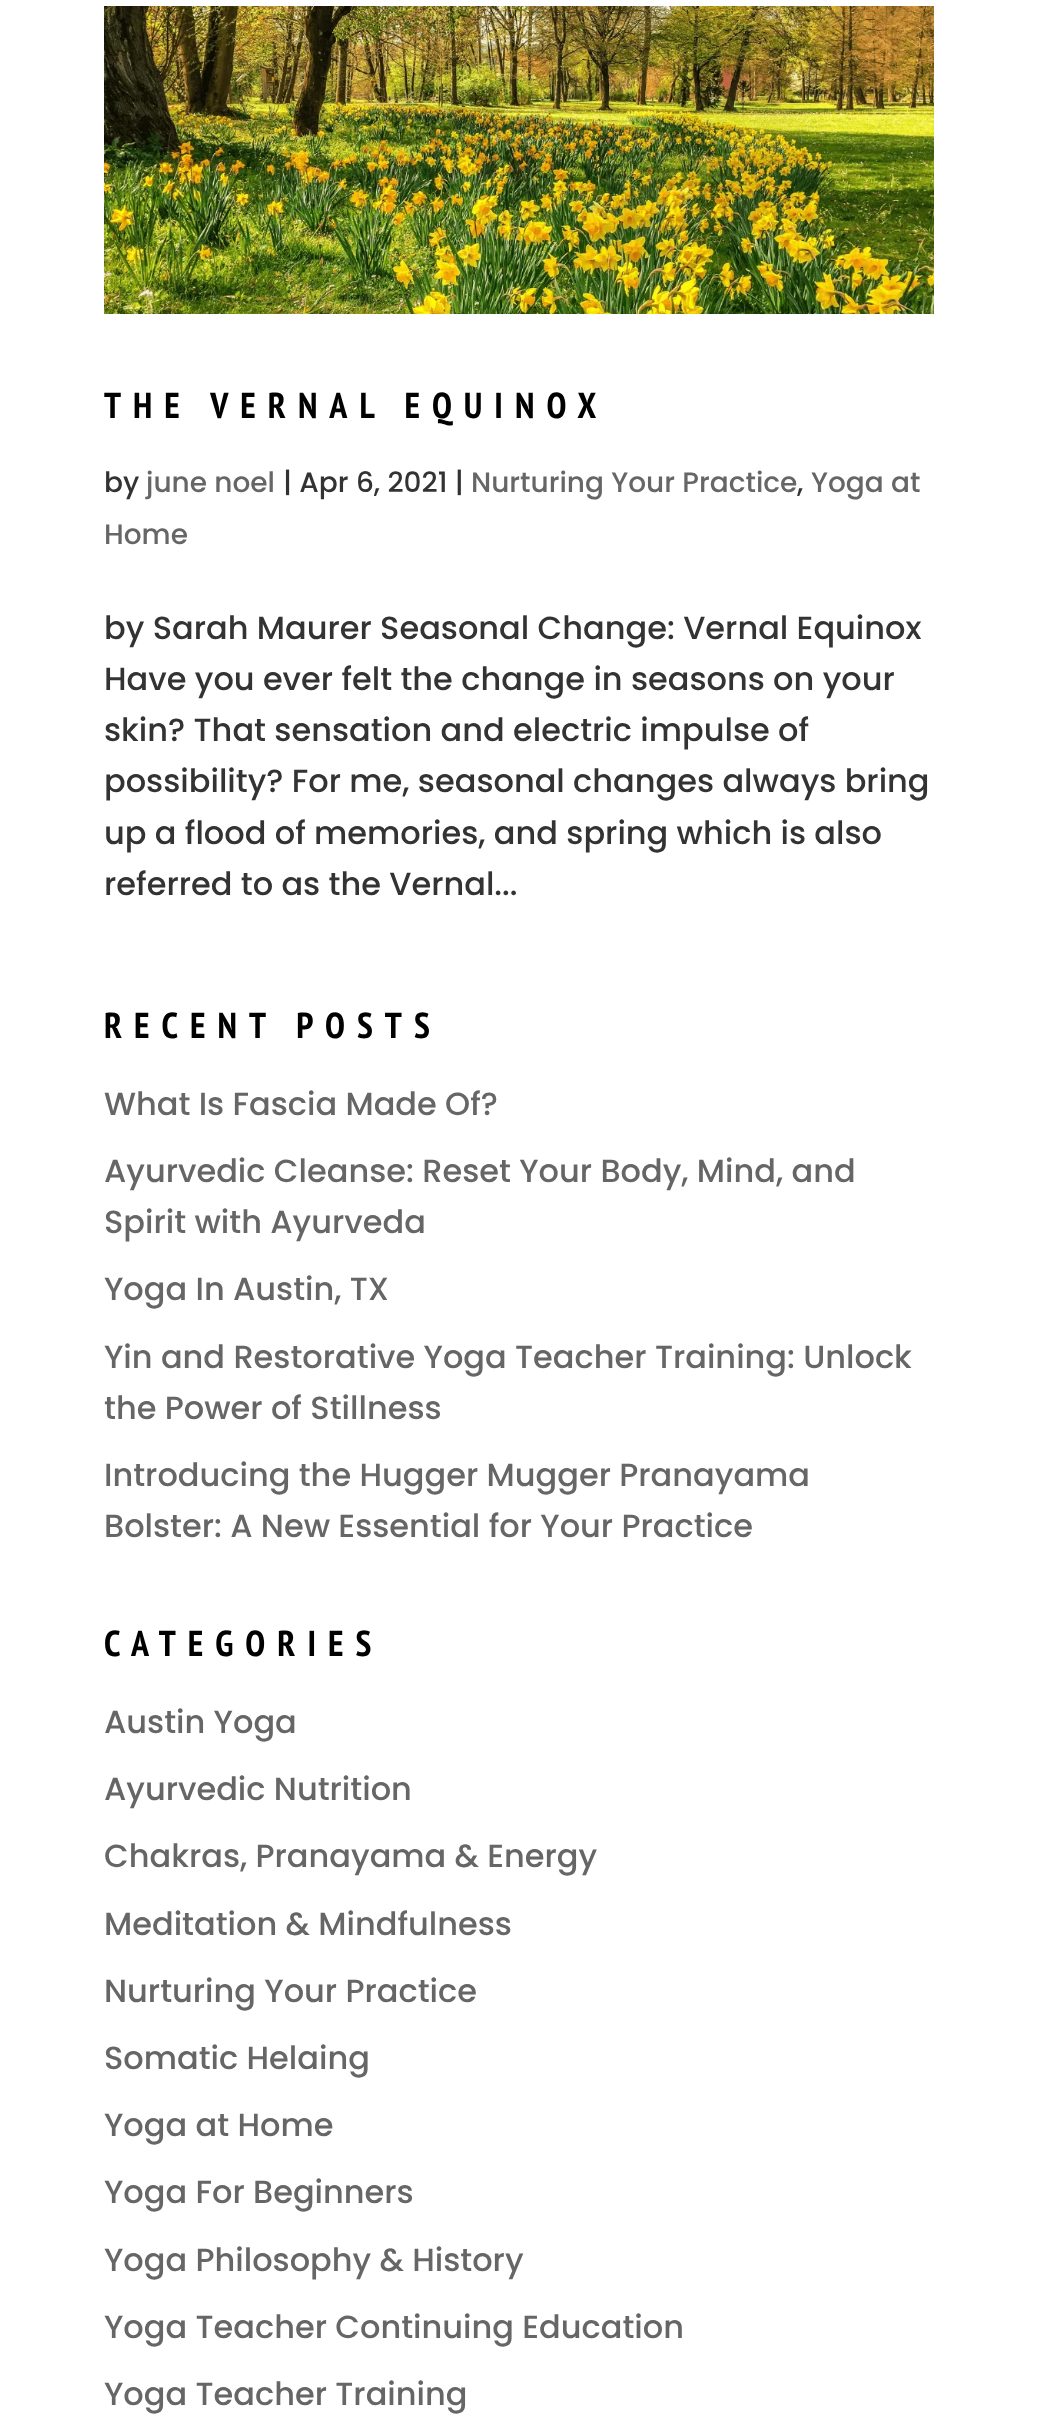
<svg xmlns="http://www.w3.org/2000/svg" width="1038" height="2427">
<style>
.a{font:bold 36px PT Sans Narrow;letter-spacing:12px;fill:#000}
.b{font:500 28px Poppins;fill:#333}
.c{font:500 28px Poppins;fill:#666}
.d{font:500 32px Poppins;fill:#333}
.e{font:500 32px Poppins;fill:#666}
</style>
<rect width="100%" height="100%" fill="#fff"/>
<image href="1.png" x="104" y="6" width="830" height="308"/>
<text class="a" x="104" y="418">THE VERNAL EQUINOX</text>
<text class="b" x="104" y="492">by</text>
<text class="c" x="146" y="492">june noel</text>
<text class="b" x="283" y="492">| Apr 6, 2021 |</text>
<text class="c" x="471" y="492">Nurturing Your Practice</text>
<text class="b" x="797" y="492">,</text>
<text class="c" x="811" y="492">Yoga at</text>
<text class="c" x="104" y="544">Home</text>
<text class="d" x="104" y="639">by Sarah Maurer Seasonal Change: Vernal Equinox</text>
<text class="d" x="104" y="690">Have you ever felt the change in seasons on your</text>
<text class="d" x="104" y="741">skin? That sensation and electric impulse of</text>
<text class="d" x="104" y="792">possibility? For me, seasonal changes always bring</text>
<text class="d" x="104" y="844">up a flood of memories, and spring which is also</text>
<text class="d" x="104" y="895">referred to as the Vernal...</text>
<text class="a" x="104" y="1038">RECENT POSTS</text>
<text class="e" x="104" y="1115">What Is Fascia Made Of?</text>
<text class="e" x="104" y="1182">Ayurvedic Cleanse: Reset Your Body, Mind, and</text>
<text class="e" x="104" y="1233">Spirit with Ayurveda</text>
<text class="e" x="104" y="1300">Yoga In Austin, TX</text>
<text class="e" x="104" y="1368">Yin and Restorative Yoga Teacher Training: Unlock</text>
<text class="e" x="104" y="1419">the Power of Stillness</text>
<text class="e" x="104" y="1486">Introducing the Hugger Mugger Pranayama</text>
<text class="e" x="104" y="1537">Bolster: A New Essential for Your Practice</text>
<text class="a" x="104" y="1656">CATEGORIES</text>
<text class="e" x="104" y="1733">Austin Yoga</text>
<text class="e" x="104" y="1800">Ayurvedic Nutrition</text>
<text class="e" x="104" y="1867">Chakras, Pranayama &amp; Energy</text>
<text class="e" x="104" y="1935">Meditation &amp; Mindfulness</text>
<text class="e" x="104" y="2002">Nurturing Your Practice</text>
<text class="e" x="104" y="2069">Somatic Helaing</text>
<text class="e" x="104" y="2136">Yoga at Home</text>
<text class="e" x="104" y="2203">Yoga For Beginners</text>
<text class="e" x="104" y="2271">Yoga Philosophy &amp; History</text>
<text class="e" x="104" y="2338">Yoga Teacher Continuing Education</text>
<text class="e" x="104" y="2405">Yoga Teacher Training</text>
</svg>
